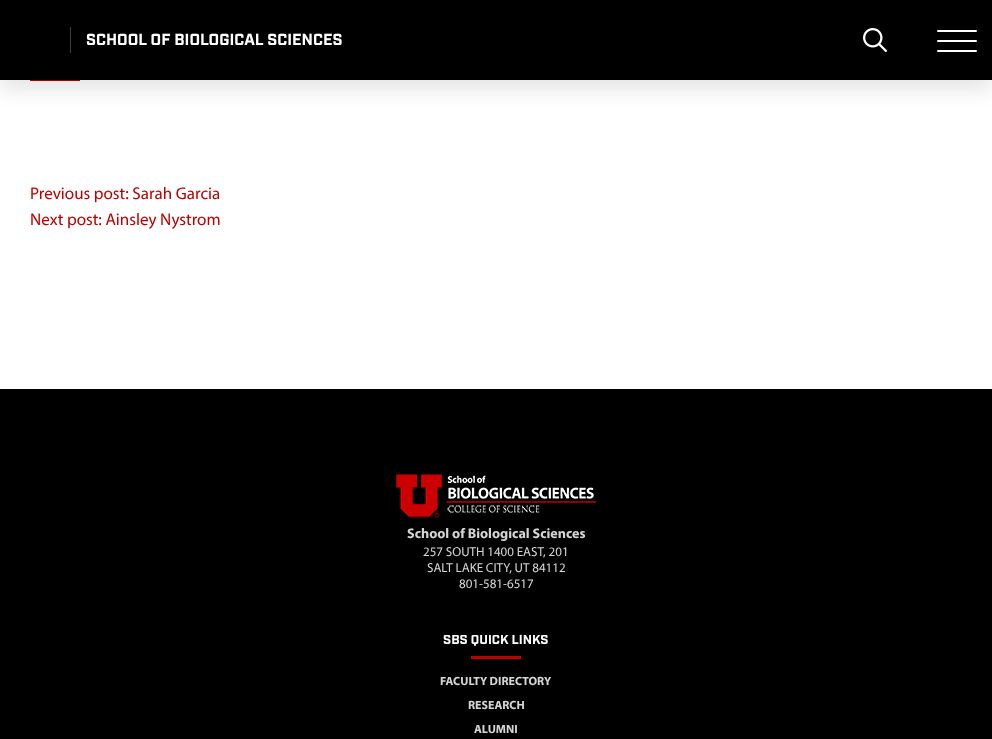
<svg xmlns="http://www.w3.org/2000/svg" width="992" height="739">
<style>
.a{font:bold 16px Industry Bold;fill:#fff}
.b{font:17px Myriad;fill:#be0000}
.c{font:bold 14px Myriad;fill:#d5d5d5}
.d{font:13px Myriad;fill:#d5d5d5}
.e{font:bold 13px Industry Bold;fill:#fff}
.f{font:bold 12px Myriad;fill:#d5d5d5}
</style>
<rect width="100%" height="100%" fill="#fff"/>
<path fill="#be0000" d="M30 80h50v1H30z"/>
<path fill="#0000001a" filter="blur(10px)" d="M0 10h992v80H0z"/>
<path fill="#000" d="M0 0h992v80H0z"/>
<path fill="#463c3c" d="M70 27h1v26H70z"/>
<image href="1.png" x="863" y="28" width="24" height="24"/>
<rect fill="#fff" x="937" y="30" width="40" height="2" rx="1"/>
<rect fill="#fff" x="937" y="40" width="40" height="2" rx="1"/>
<rect fill="#fff" x="937" y="50" width="40" height="2" rx="1"/>
<path fill="#000" d="M0 389h992v350H0z"/>
<image href="2.png" x="396" y="474" width="200" height="44"/>
<path fill="#be0000" d="M471 656h50v3H471z"/>
<text class="a" x="86" y="45">SCHOOL OF BIOLOGICAL SCIENCES</text>
<text class="b" x="30" y="199">Previous post: Sarah Garcia</text>
<text class="b" x="30" y="225">Next post: Ainsley Nystrom</text>
<text class="c" x="407" y="538">School of Biological Sciences</text>
<text class="d" x="423" y="556">257 SOUTH 1400 EAST, 201</text>
<text class="d" x="427" y="572">SALT LAKE CITY, UT 84112</text>
<text class="d" x="459" y="588">801-581-6517</text>
<text class="e" x="443" y="644">SBS QUICK LINKS</text>
<text class="f" x="440" y="685">FACULTY DIRECTORY</text>
<text class="f" x="468" y="709">RESEARCH</text>
<text class="f" x="474" y="733">ALUMNI</text>
</svg>
